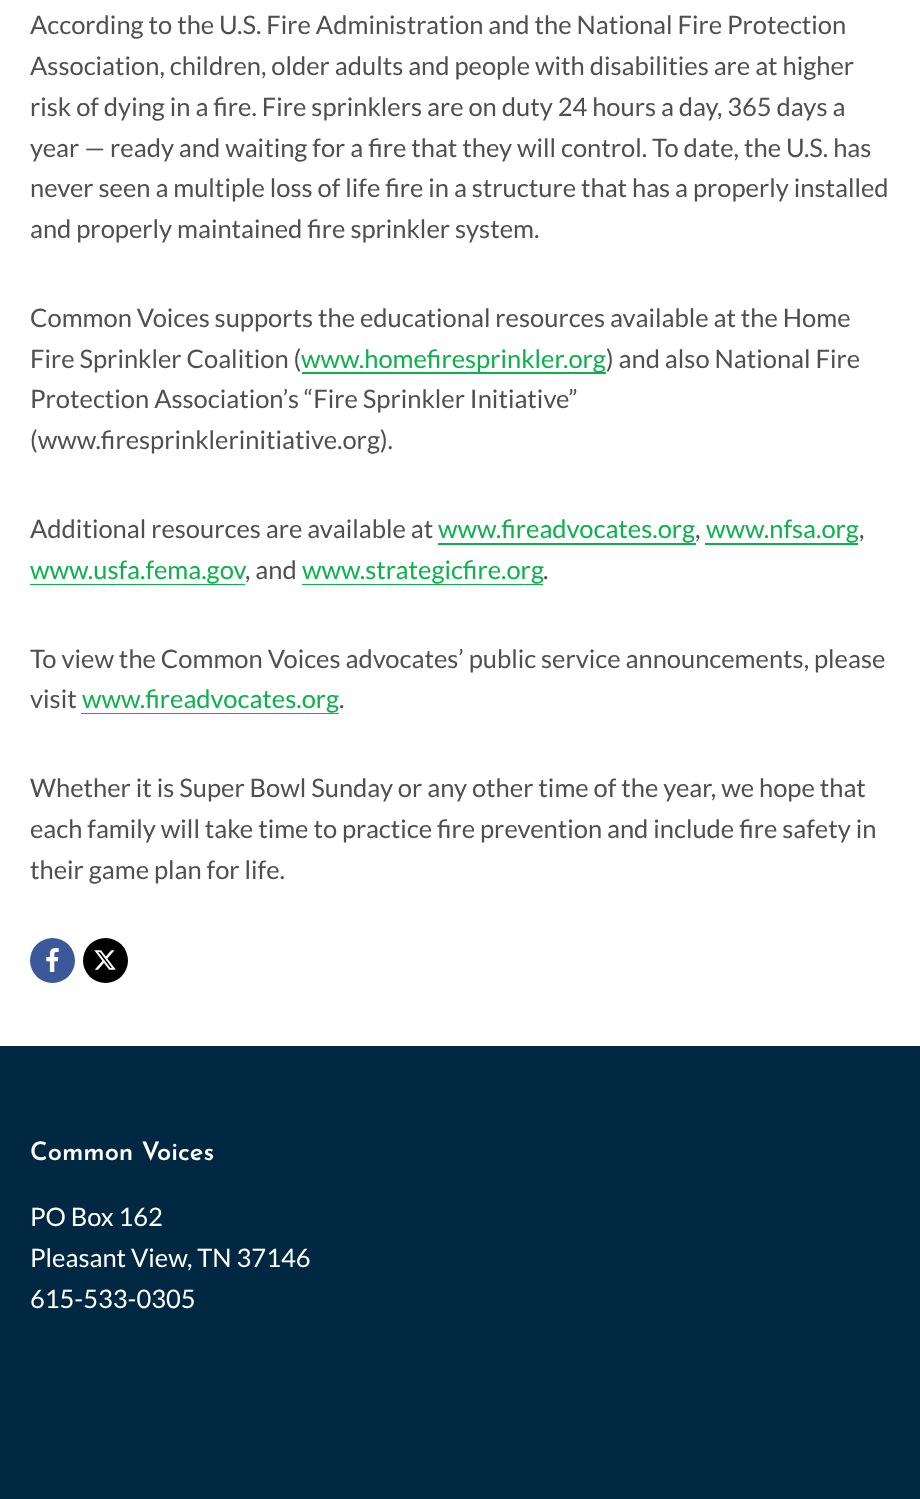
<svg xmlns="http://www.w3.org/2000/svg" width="920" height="1499">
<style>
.a{font:25.5px Lato;fill:#4f4f4f}
.b{font:25.5px Lato;fill:#0db14b}
.c{font:100 25.5px Josefin Sans;fill:#fff}
.d{font:25.5px Lato;fill:#fff}
</style>
<rect width="100%" height="100%" fill="#fff"/>
<path fill="#0db14b" d="M302 372h304v2H302z"/>
<path fill="#0db14b" d="M438 543h258v2H438z"/>
<path fill="#0db14b" d="M705 543h153v2H705z"/>
<path fill="#0db14b" d="M30 584h215v1H30z"/>
<path fill="#0db14b" d="M302 584h241v1H302z"/>
<path fill="#0db14b" d="M81 713h258v1H81z"/>
<circle fill="#3b5998" cx="52.5" cy="960.5" r="22.5"/>
<image href="1.png" x="46" y="948" width="13" height="24"/>
<circle fill="#000" cx="105.5" cy="960.5" r="22.5"/>
<image href="2.png" x="94" y="950" width="22" height="20"/>
<path fill="#012842" d="M0 1046h920v453H0z"/>
<text class="a" x="30" y="34">According to the U.S. Fire Administration and the National Fire Protection</text>
<text class="a" x="30" y="75">Association, children, older adults and people with disabilities are at higher</text>
<text class="a" x="30" y="116">risk of dying in a fire. Fire sprinklers are on duty 24 hours a day, 365 days a</text>
<text class="a" x="30" y="157">year — ready and waiting for a fire that they will control. To date, the U.S. has</text>
<text class="a" x="30" y="197">never seen a multiple loss of life fire in a structure that has a properly installed</text>
<text class="a" x="30" y="238">and properly maintained fire sprinkler system.</text>
<text class="a" x="30" y="327">Common Voices supports the educational resources available at the Home</text>
<text class="a" x="30" y="368">Fire Sprinkler Coalition (</text>
<text class="b" x="301" y="368">www.homefiresprinkler.org</text>
<text class="a" x="606" y="368">) and also National Fire</text>
<text class="a" x="30" y="408">Protection Association’s “Fire Sprinkler Initiative”</text>
<text class="a" x="30" y="449">(www.firesprinklerinitiative.org).</text>
<text class="a" x="30" y="538">Additional resources are available at</text>
<text class="b" x="438" y="538">www.fireadvocates.org</text>
<text class="a" x="695" y="538">,</text>
<text class="b" x="706" y="538">www.nfsa.org</text>
<text class="a" x="859" y="538">,</text>
<text class="b" x="30" y="579">www.usfa.fema.gov</text>
<text class="a" x="245" y="579">, and</text>
<text class="b" x="302" y="579">www.strategicfire.org</text>
<text class="a" x="543" y="579">.</text>
<text class="a" x="30" y="668">To view the Common Voices advocates’ public service announcements, please</text>
<text class="a" x="30" y="708">visit</text>
<text class="b" x="82" y="708">www.fireadvocates.org</text>
<text class="a" x="339" y="708">.</text>
<text class="a" x="30" y="797">Whether it is Super Bowl Sunday or any other time of the year, we hope that</text>
<text class="a" x="30" y="838">each family will take time to practice fire prevention and include fire safety in</text>
<text class="a" x="30" y="879">their game plan for life.</text>
<text class="c" x="30" y="1160">Common Voices</text>
<text class="d" x="30" y="1226">PO Box 162</text>
<text class="d" x="30" y="1267">Pleasant View, TN 37146</text>
<text class="d" x="30" y="1308">615-533-0305</text>
</svg>
